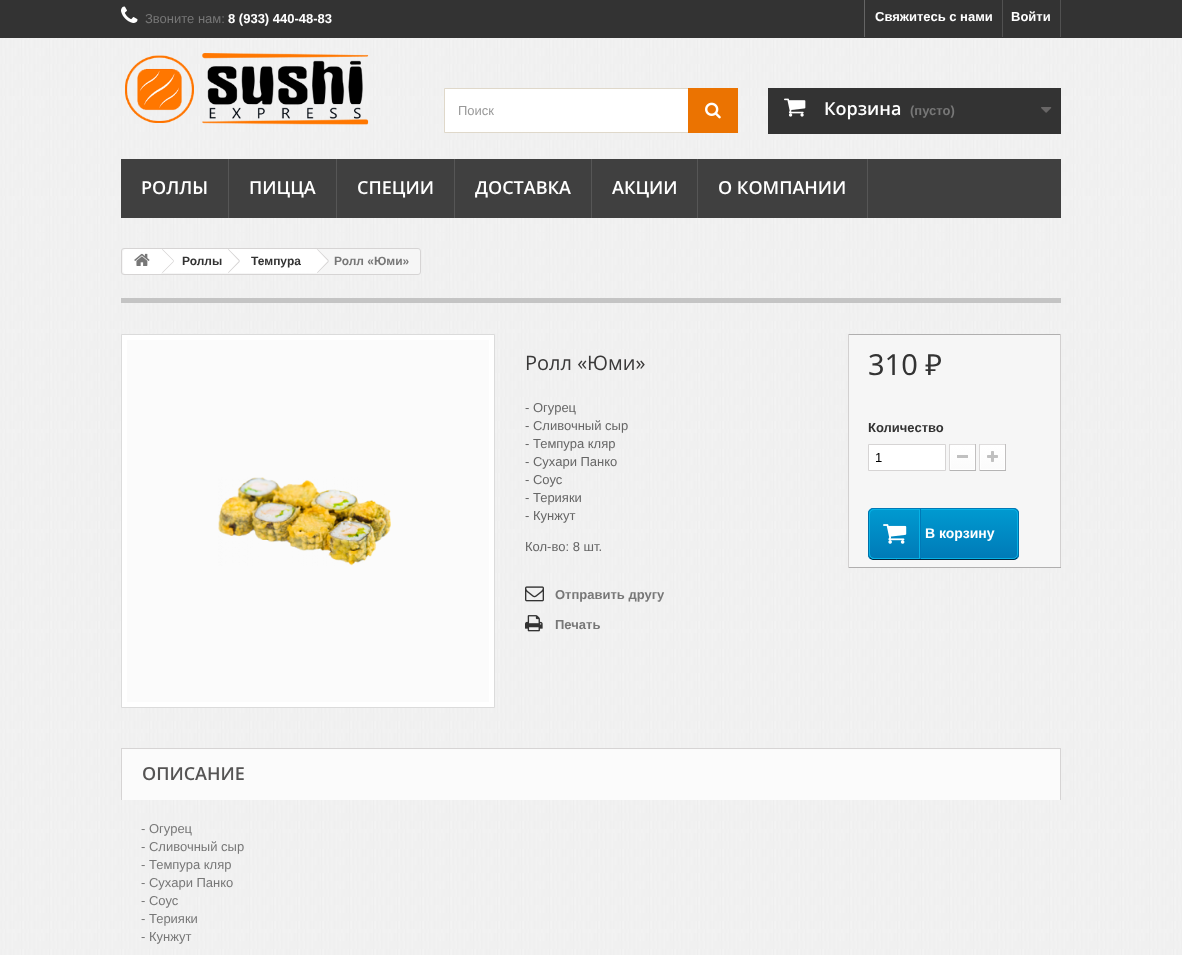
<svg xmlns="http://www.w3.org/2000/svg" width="1182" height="955">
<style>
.a{font:13px Liberation Sans;fill:#777}
.b{font:bold 13px Liberation Sans;fill:#fff}
.c{font:13px Liberation Sans;fill:#999}
.d{font:600 18px Open Sans;fill:#fff}
.e{font:bold 13px Liberation Sans;fill:#777}
.f{font:bold 12px Liberation Sans;fill:#333}
.g{font:bold 12px Liberation Sans;fill:#777}
.h{font:20px Open Sans;fill:#3a3939}
.i{font:13px Liberation Sans;fill:#666}
.j{font:29px Noto Sans;fill:#333}
.k{font:bold 13px Liberation Sans;fill:#333}
.l{font:13px Liberation Sans;fill:#000}
.m{font:bold 14px Liberation Sans;fill:#fff}
.n{font:600 18px Open Sans;fill:#555454}
</style>
<defs>
<linearGradient id="g1" gradientUnits="userSpaceOnUse" x1="963" y1="446" x2="963" y2="469"><stop offset="0" stop-color="#fff"/><stop offset="1" stop-color="#fbfbfb"/></linearGradient>
<linearGradient id="g2" gradientUnits="userSpaceOnUse" x1="993" y1="446" x2="993" y2="469"><stop offset="0" stop-color="#fff"/><stop offset="1" stop-color="#fbfbfb"/></linearGradient>
<clipPath id="clip1"><rect x="868" y="508" width="151" height="52" rx="5"/></clipPath>
<linearGradient id="g3" gradientUnits="userSpaceOnUse" x1="944" y1="459" x2="944" y2="509"><stop offset="0" stop-color="#009ad0"/><stop offset="1" stop-color="#007ab7"/></linearGradient>
<linearGradient id="g4" gradientUnits="userSpaceOnUse" x1="944" y1="509" x2="944" y2="559"><stop offset="0" stop-color="#009ad0"/><stop offset="1" stop-color="#007ab7"/></linearGradient>
<linearGradient id="g5" gradientUnits="userSpaceOnUse" x1="944" y1="559" x2="944" y2="609"><stop offset="0" stop-color="#009ad0"/><stop offset="1" stop-color="#007ab7"/></linearGradient>
</defs>
<rect width="100%" height="100%" fill="#fff"/>
<image href="1.png" x="0" y="38" width="1182" height="195"/>
<path fill="#333" d="M0 0h1182v38H0z"/>
<image href="2.png" x="121" y="6" width="17" height="17"/>
<path fill="#656565" d="M864 0h1v37H864z"/>
<path fill="#515151" d="M1060 0h1v37H1060z"/>
<path fill="#515151" d="M1002 0h1v37H1002z"/>
<image href="3.png" x="125" y="53" width="244" height="72"/>
<path fill="#fff" d="M445 89h243v43H445z"/>
<path fill="none" stroke="#dfd8ca" d="M444.5 88.5h293v44H444.5z"/>
<path fill="#eb7301" d="M688 88h50v45H688z"/>
<image href="4.png" x="705" y="102" width="16" height="17"/>
<path fill="#333" d="M768 88h293v46H768z"/>
<image href="5.png" x="784" y="98" width="22" height="19"/>
<image href="6.png" x="1041" y="107" width="11" height="6"/>
<path fill="#404040" d="M121 159h940v59H121z"/>
<path fill="#565656" d="M228 159h1v59H228z"/>
<path fill="#565656" d="M336 159h1v59H336z"/>
<path fill="#565656" d="M454 159h1v59H454z"/>
<path fill="#565656" d="M591 159h1v59H591z"/>
<path fill="#565656" d="M697 159h1v59H697z"/>
<path fill="#565656" d="M867 159h1v59H867z"/>
<image href="7.png" x="0" y="233" width="1182" height="722"/>
<rect fill="#f6f6f6" stroke="#d6d4d4" x="121.5" y="248.5" width="299" height="26" rx="2.5"/>
<path fill="#fff" d="M126 249h35v25h-35c-1.5 0-3-1.5-3-3v-19c0-1.5 1.5-3 3-3z"/>
<image href="8.png" x="134" y="253" width="16" height="13"/>
<path fill="#fff" d="M161 249h68v24H161z"/>
<path fill="#d6d4d4" d="M162.5 249l11.5 11.5l-.5 .5l-11.5-11.5zm11 12l.5 .5l-11.5 11.5l-.5-.5z"/>
<path fill="#fff" d="M239.5 249.5l9.5 10c1 1 1 2 0 3l-9.5 10c-1 .5-2 .5-3 0l-10-10c-.5-1-.5-2 0-3l10-10c1-.5 2-.5 3 0z"/>
<path fill="#fff" d="M229 249h87v24H229z"/>
<path fill="#d6d4d4" d="M228.5 249l11.5 11.5l-1 .5l-11-11.5zm10.5 12l1 .5l-11.5 11.5l-.5-.5z"/>
<path fill="#fff" d="M318 249.5l10 10c1 1 1 2 0 3l-10 10c-.5 .5-2 .5-2.5 0l-10-10c-1-1-1-2 0-3l10-10c.5-.5 2-.5 2.5 0z"/>
<path fill="#d6d4d4" d="M317.5 249l11.5 11.5l-1 .5l-11-11.5zm10.5 12l1 .5l-11.5 11.5l-.5-.5z"/>
<path fill="#c4c4c4" d="M121 298h940v5H121z"/>
<path fill="#fff" stroke="#dbdbdb" d="M121.5 334.5h373v373H121.5z"/>
<path fill="#fbfbfb" d="M127 340h362v362H127z"/>
<image href="9.png" x="218" y="477" width="173" height="89"/>
<image href="10.png" x="525" y="586" width="19" height="16"/>
<image href="11.png" x="525" y="615" width="18" height="17"/>
<path fill="#f6f6f6" d="M849 335h211v232H849z"/>
<path fill="#b0afaf" d="M848 334h213v1H848z"/>
<path fill="#d2d0d0" d="M1060 334h1v234H1060z"/>
<path fill="#b0afaf" d="M848 567h213v1H848z"/>
<path fill="#d2d0d0" d="M848 334h1v234H848z"/>
<path fill="#fff" stroke="#d6d4d4" d="M868.5 444.5h77v26H868.5z"/>
<path fill="#dedcdc" d="M949 444h27v1H949z"/>
<path fill="#c1bfbf" d="M975 444h1v27H975z"/>
<path fill="#b5b4b4" d="M949 470h27v1H949z"/>
<path fill="#dad8d8" d="M949 444h1v27H949z"/>
<path fill="url(#g1)" d="M951 446h23v23H951z"/>
<path fill="none" stroke="#fff" d="M950.5 445.5h24v24H950.5z"/>
<path fill="#c0c0c0" d="M957 455h11v3H957z"/>
<path fill="#dedcdc" d="M979 444h27v1H979z"/>
<path fill="#c1bfbf" d="M1005 444h1v27H1005z"/>
<path fill="#b5b4b4" d="M979 470h27v1H979z"/>
<path fill="#dad8d8" d="M979 444h1v27H979z"/>
<path fill="url(#g2)" d="M981 446h23v23H981z"/>
<path fill="none" stroke="#fff" d="M980.5 445.5h24v24H980.5z"/>
<image href="12.png" x="987" y="451" width="11" height="11"/>
<g clip-path="url(#clip1)">
<path fill="url(#g3)" d="M868 508h151v1H868z"/>
<path fill="url(#g4)" d="M868 509h151v50H868z"/>
<path fill="url(#g5)" d="M868 559h151v1H868z"/>
</g>
<path fill="none" stroke="#0079b6" d="M870 510l2.5-1.5h118h23.5l3 1.5"/>
<path fill="none" stroke="#006fa8" d="M1017 510c1 .5 1.5 2 1.5 3v42c0 1-.5 2.5-1.5 3"/>
<path fill="none" stroke="#012740" d="M1017 558l-2.5 1.5h-118h-23.5l-3-1.5"/>
<path fill="none" stroke="#006fa8" d="M870 558c-1-.5-1.5-2-1.5-3v-42c0-1 .5-2.5 1.5-3"/>
<rect fill="none" stroke="#06b2e6" x="869.5" y="509.5" width="148" height="49" rx="4.5"/>
<path fill="none" stroke="#06b2e6" d="M874 509.5h45.5v49h-45.5c-2.5 0-4.5-2-4.5-4.5v-40c0-2.5 2-4.5 4.5-4.5z"/>
<image href="13.png" x="883" y="524" width="24" height="20"/>
<path fill="#0079b6" d="M920 509h1v50H920z"/>
<path fill="#fbfbfb" d="M122 749h938v51H122z"/>
<path fill="#d6d4d4" d="M121 748h940v1H121z"/>
<path fill="#d6d4d4" d="M1060 748h1v52H1060z"/>
<path fill="#d6d4d4" d="M121 748h1v52H121z"/>
<text class="a" x="145" y="23">Звоните нам:</text>
<text class="b" x="228" y="23">8 (933) 440-48-83</text>
<text class="b" x="875" y="21">Свяжитесь с нами</text>
<text class="b" x="1011" y="21">Войти</text>
<text class="c" x="458" y="115">Поиск</text>
<text class="d" x="824" y="115">Корзина</text>
<text class="e" x="910" y="115">(пусто)</text>
<text class="d" x="141" y="194">РОЛЛЫ</text>
<text class="d" x="249" y="194">ПИЦЦА</text>
<text class="d" x="357" y="194">СПЕЦИИ</text>
<text class="d" x="475" y="194">ДОСТАВКА</text>
<text class="d" x="612" y="194">АКЦИИ</text>
<text class="d" x="718" y="194">О КОМПАНИИ</text>
<text class="f" x="182" y="265">Роллы</text>
<text class="f" x="251" y="265">Темпура</text>
<text class="g" x="334" y="265">Ролл «Юми»</text>
<text class="h" x="525" y="370">Ролл «Юми»</text>
<text class="i" x="525" y="412">- Огурец</text>
<text class="i" x="525" y="430">- Сливочный сыр</text>
<text class="i" x="525" y="448">- Темпура кляр</text>
<text class="i" x="525" y="466">- Сухари Панко</text>
<text class="i" x="525" y="484">- Соус</text>
<text class="i" x="525" y="502">- Терияки</text>
<text class="i" x="525" y="520">- Кунжут</text>
<text class="i" x="525" y="551">Кол-во: 8 шт.</text>
<text class="e" x="555" y="599">Отправить другу</text>
<text class="e" x="555" y="629">Печать</text>
<text class="j" x="868" y="375">310 ₽</text>
<text class="k" x="868" y="432">Количество</text>
<text class="l" x="875" y="462">1</text>
<text class="m" x="925" y="538">В корзину</text>
<text class="n" x="142" y="780">ОПИСАНИЕ</text>
<text class="a" x="141" y="833">- Огурец</text>
<text class="a" x="141" y="851">- Сливочный сыр</text>
<text class="a" x="141" y="869">- Темпура кляр</text>
<text class="a" x="141" y="887">- Сухари Панко</text>
<text class="a" x="141" y="905">- Соус</text>
<text class="a" x="141" y="923">- Терияки</text>
<text class="a" x="141" y="941">- Кунжут</text>
</svg>
